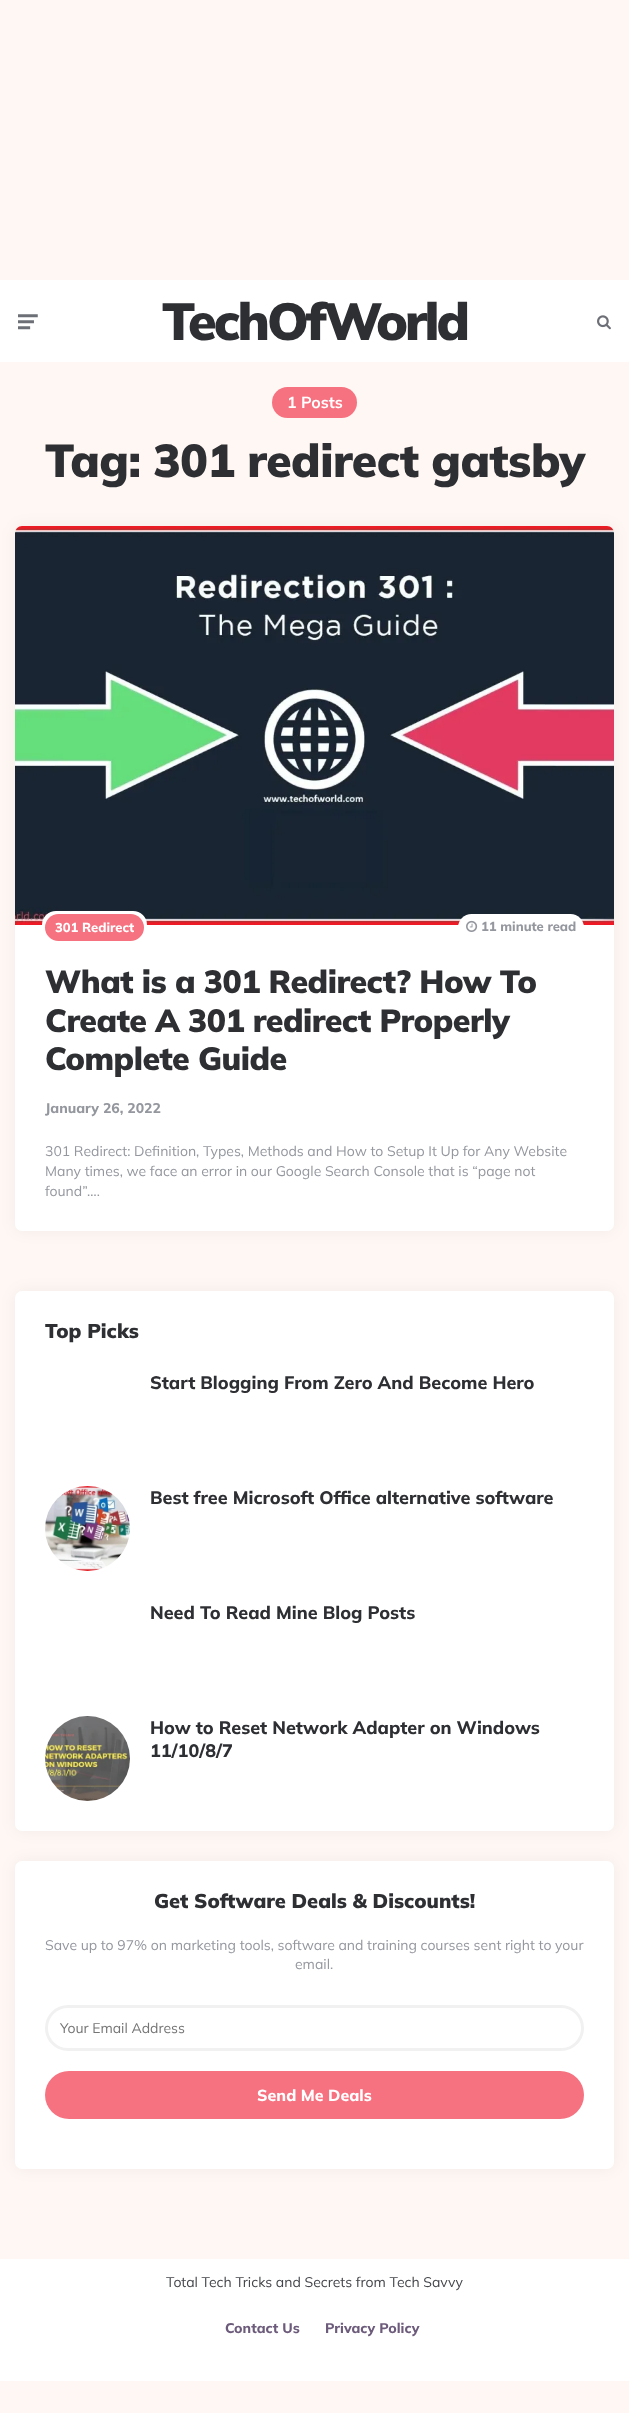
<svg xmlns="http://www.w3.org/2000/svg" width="629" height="2413">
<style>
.a{font:900 52px Mulish;letter-spacing:-3px;fill:#2e2f33}
.b{font:bold 16px Mulish;fill:#fff}
.c{font:900 46px Mulish;letter-spacing:-0.5px;fill:#2e2f33}
.d{font:800 13px Mulish;fill:#94979e}
.e{font:800 14px Mulish;fill:#94979e}
.f{font:800 13px Mulish;fill:#fff}
.g{font:900 32px Mulish;letter-spacing:-0.5px;fill:#2e2f33}
.h{font:14px Mulish;fill:#94979e}
.i{font:900 20px Mulish;fill:#2e2f33}
.j{font:800 18px Mulish;fill:#2e2f33}
.k{font:14px Mulish;fill:#757575}
.l{font:800 16px Mulish;fill:#fff}
.m{font:14px Mulish;fill:#45464b}
.n{font:800 14px Mulish;fill:#6c5b7b}
</style>
<rect width="100%" height="100%" fill="#fff7f3"/>
<path fill="#fff" d="M0 280h629v82H0z"/>
<image href="1.png" x="18" y="314" width="20" height="16"/>
<image href="2.png" x="597" y="315" width="14" height="15"/>
<rect fill="#f67280" x="272" y="387" width="85" height="31" rx="15.5"/>
<rect fill="#0000000d" filter="blur(7.5px)" x="15" y="526" width="599" height="705" rx="7"/>
<rect fill="#fff" x="15" y="526" width="599" height="705" rx="7"/>
<image href="3.png" x="15" y="526" width="599" height="399"/>
<rect fill="#fff" x="458" y="914" width="126" height="27" rx="13.5"/>
<image href="4.png" x="466" y="920" width="12" height="12"/>
<rect fill="#fff" stroke="#fff" stroke-width="3" x="43.5" y="912.5" width="102" height="30" rx="12.5"/>
<rect fill="#f67280" x="45" y="914" width="99" height="27" rx="13.5"/>
<rect fill="#0000000d" filter="blur(7.5px)" x="15" y="1291" width="599" height="540" rx="7"/>
<rect fill="#fff" x="15" y="1291" width="599" height="540" rx="7"/>
<image href="5.png" x="45" y="1486" width="85" height="85"/>
<image href="6.png" x="45" y="1716" width="85" height="85"/>
<rect fill="#0000000d" filter="blur(7.5px)" x="15" y="1861" width="599" height="308" rx="7"/>
<rect fill="#fff" x="15" y="1861" width="599" height="308" rx="7"/>
<rect fill="none" stroke="#f1f1f1" stroke-width="3" x="46.5" y="2006.5" width="536" height="43" rx="21.5"/>
<rect fill="#f67280" x="45" y="2071" width="539" height="48" rx="24"/>
<path fill="#fff" d="M0 2259h629v122H0z"/>
<text class="a" x="162" y="340">TechOfWorld</text>
<text class="b" x="287" y="408">1 Posts</text>
<text class="c" x="45" y="477">Tag: 301 redirect gatsby</text>
<text class="d" x="481" y="931">11 minute read</text>
<text class="e" x="45" y="1113">January 26, 2022</text>
<text class="f" x="55" y="932">301 Redirect</text>
<text class="g" x="45" y="993">What is a 301 Redirect? How To</text>
<text class="g" x="45" y="1032">Create A 301 redirect Properly</text>
<text class="g" x="45" y="1070">Complete Guide</text>
<text class="h" x="45" y="1156">301 Redirect: Definition, Types, Methods and How to Setup It Up for Any Website</text>
<text class="h" x="45" y="1176">Many times, we face an error in our Google Search Console that is “page not</text>
<text class="h" x="45" y="1196">found”….</text>
<text class="i" x="45" y="1338">Top Picks</text>
<text class="j" x="150" y="1389">Start Blogging From Zero And Become Hero</text>
<text class="j" x="150" y="1504">Best free Microsoft Office alternative software</text>
<text class="j" x="150" y="1619">Need To Read Mine Blog Posts</text>
<text class="j" x="150" y="1734">How to Reset Network Adapter on Windows</text>
<text class="j" x="150" y="1757">11/10/8/7</text>
<text class="i" x="154" y="1908">Get Software Deals &amp; Discounts!</text>
<text class="h" x="45" y="1950">Save up to 97% on marketing tools, software and training courses sent right to your</text>
<text class="h" x="295" y="1969">email.</text>
<text class="k" x="60" y="2033">Your Email Address</text>
<text class="l" x="257" y="2101">Send Me Deals</text>
<text class="m" x="166" y="2287">Total Tech Tricks and Secrets from Tech Savvy</text>
<text class="n" x="225" y="2333">Contact Us</text>
<text class="n" x="325" y="2333">Privacy Policy</text>
</svg>
